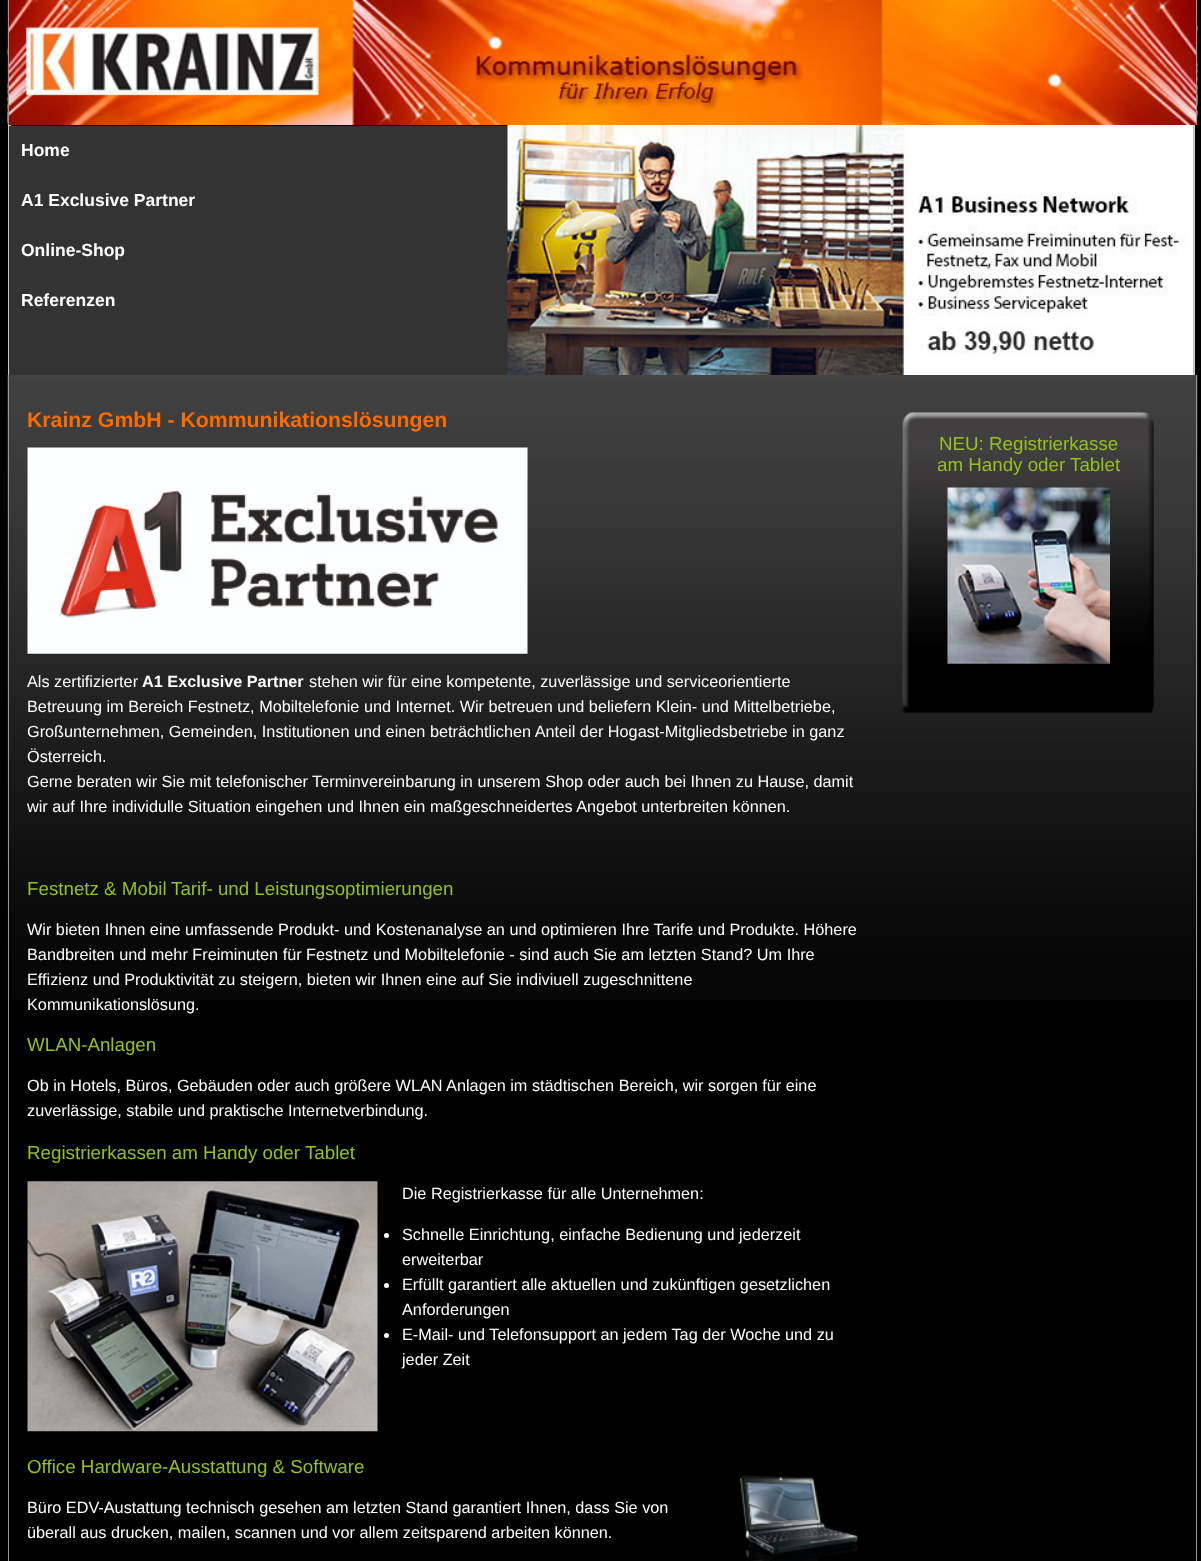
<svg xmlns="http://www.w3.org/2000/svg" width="1201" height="1561">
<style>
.a{font:bold 17.5px Liberation Sans;fill:#fff}
.b{font:bold 21.25px Liberation Sans;fill:#fc6b00}
.c{font:16.25px Liberation Sans;fill:#fff}
.d{font:bold 16.25px Liberation Sans;fill:#fff}
.e{font:18.75px Liberation Sans;fill:#93c21c}
</style>
<rect width="100%" height="100%" fill="#000"/>
<image href="1.png" x="7" y="0" width="1191" height="125"/>
<path fill="#999" d="M1196 0h1v125H1196z"/>
<path fill="#999" d="M8 0h1v125H8z"/>
<path fill="#ccc" d="M8 125h3v253H8z"/>
<path fill="#333" d="M9 126h499v249H9z"/>
<path fill="#ccc" d="M1194 125h1v250H1194z"/>
<image href="2.png" x="507" y="125" width="687" height="250"/>
<path fill="#000" d="M9 375h2v3H9z"/>
<image href="3.png" x="7" y="375" width="1191" height="625"/>
<path fill="#999" d="M1196 375h1v1186H1196z"/>
<path fill="#999" d="M8 375h1v1186H8z"/>
<image href="4.png" x="28" y="375" width="837" height="625"/>
<image href="5.png" x="27" y="447" width="501" height="207"/>
<image href="6.png" x="27" y="1181" width="351" height="251"/>
<circle fill="#fff" cx="386.5" cy="1235.5" r="2.5"/>
<circle fill="#fff" cx="386.5" cy="1285.5" r="2.5"/>
<circle fill="#fff" cx="386.5" cy="1335.5" r="2.5"/>
<image href="7.png" x="739" y="1475" width="119" height="86"/>
<image href="8.png" x="902" y="412" width="252" height="301"/>
<image href="9.png" x="947" y="487" width="163" height="177"/>
<text class="a" x="21" y="156">Home</text>
<text class="a" x="21" y="206">A1 Exclusive Partner</text>
<text class="a" x="21" y="256">Online-Shop</text>
<text class="a" x="21" y="306">Referenzen</text>
<text class="b" x="27" y="427">Krainz GmbH - Kommunikationslösungen</text>
<text class="c" x="27" y="687">Als zertifizierter</text>
<text class="d" x="142" y="687">A1 Exclusive Partner</text>
<text class="c" x="309" y="687">stehen wir für eine kompetente, zuverlässige und serviceorientierte</text>
<text class="c" x="27" y="712">Betreuung im Bereich Festnetz, Mobiltelefonie und Internet. Wir betreuen und beliefern Klein- und Mittelbetriebe,</text>
<text class="c" x="27" y="737">Großunternehmen, Gemeinden, Institutionen und einen beträchtlichen Anteil der Hogast-Mitgliedsbetriebe in ganz</text>
<text class="c" x="27" y="762">Österreich.</text>
<text class="c" x="27" y="787">Gerne beraten wir Sie mit telefonischer Terminvereinbarung in unserem Shop oder auch bei Ihnen zu Hause, damit</text>
<text class="c" x="27" y="812">wir auf Ihre individulle Situation eingehen und Ihnen ein maßgeschneidertes Angebot unterbreiten können.</text>
<text class="e" x="27" y="895">Festnetz &amp; Mobil</text>
<text class="e" x="171" y="895">Tarif- und Leistungsoptimierungen</text>
<text class="c" x="27" y="935">Wir bieten Ihnen eine umfassende Produkt- und Kostenanalyse an und optimieren Ihre Tarife und Produkte. Höhere</text>
<text class="c" x="27" y="960">Bandbreiten und mehr Freiminuten für Festnetz und Mobiltelefonie - sind auch Sie am letzten Stand? Um Ihre</text>
<text class="c" x="27" y="985">Effizienz und Produktivität zu steigern, bieten wir Ihnen eine auf Sie indiviuell zugeschnittene</text>
<text class="c" x="27" y="1010">Kommunikationslösung.</text>
<text class="e" x="27" y="1051">WLAN-Anlagen</text>
<text class="c" x="27" y="1091">Ob in Hotels, Büros, Gebäuden oder auch größere WLAN Anlagen im städtischen Bereich, wir sorgen für eine</text>
<text class="c" x="27" y="1116">zuverlässige, stabile und praktische Internetverbindung.</text>
<text class="e" x="27" y="1159">Registrierkassen am Handy oder Tablet</text>
<text class="c" x="402" y="1199">Die Registrierkasse für alle Unternehmen:</text>
<text class="c" x="402" y="1240">Schnelle Einrichtung, einfache Bedienung und jederzeit</text>
<text class="c" x="402" y="1265">erweiterbar</text>
<text class="c" x="402" y="1290">Erfüllt garantiert alle aktuellen und zukünftigen gesetzlichen</text>
<text class="c" x="402" y="1315">Anforderungen</text>
<text class="c" x="402" y="1340">E-Mail- und Telefonsupport an jedem Tag der Woche und zu</text>
<text class="c" x="402" y="1365">jeder Zeit</text>
<text class="e" x="27" y="1473">Office Hardware-Ausstattung &amp; Software</text>
<text class="c" x="27" y="1513">Büro EDV-Austattung technisch gesehen am letzten Stand garantiert Ihnen, dass Sie von</text>
<text class="c" x="27" y="1538">überall aus drucken, mailen, scannen und vor allem zeitsparend arbeiten können.</text>
<text class="e" x="939" y="450">NEU: Registrierkasse</text>
<text class="e" x="937" y="471">am Handy oder Tablet</text>
</svg>
